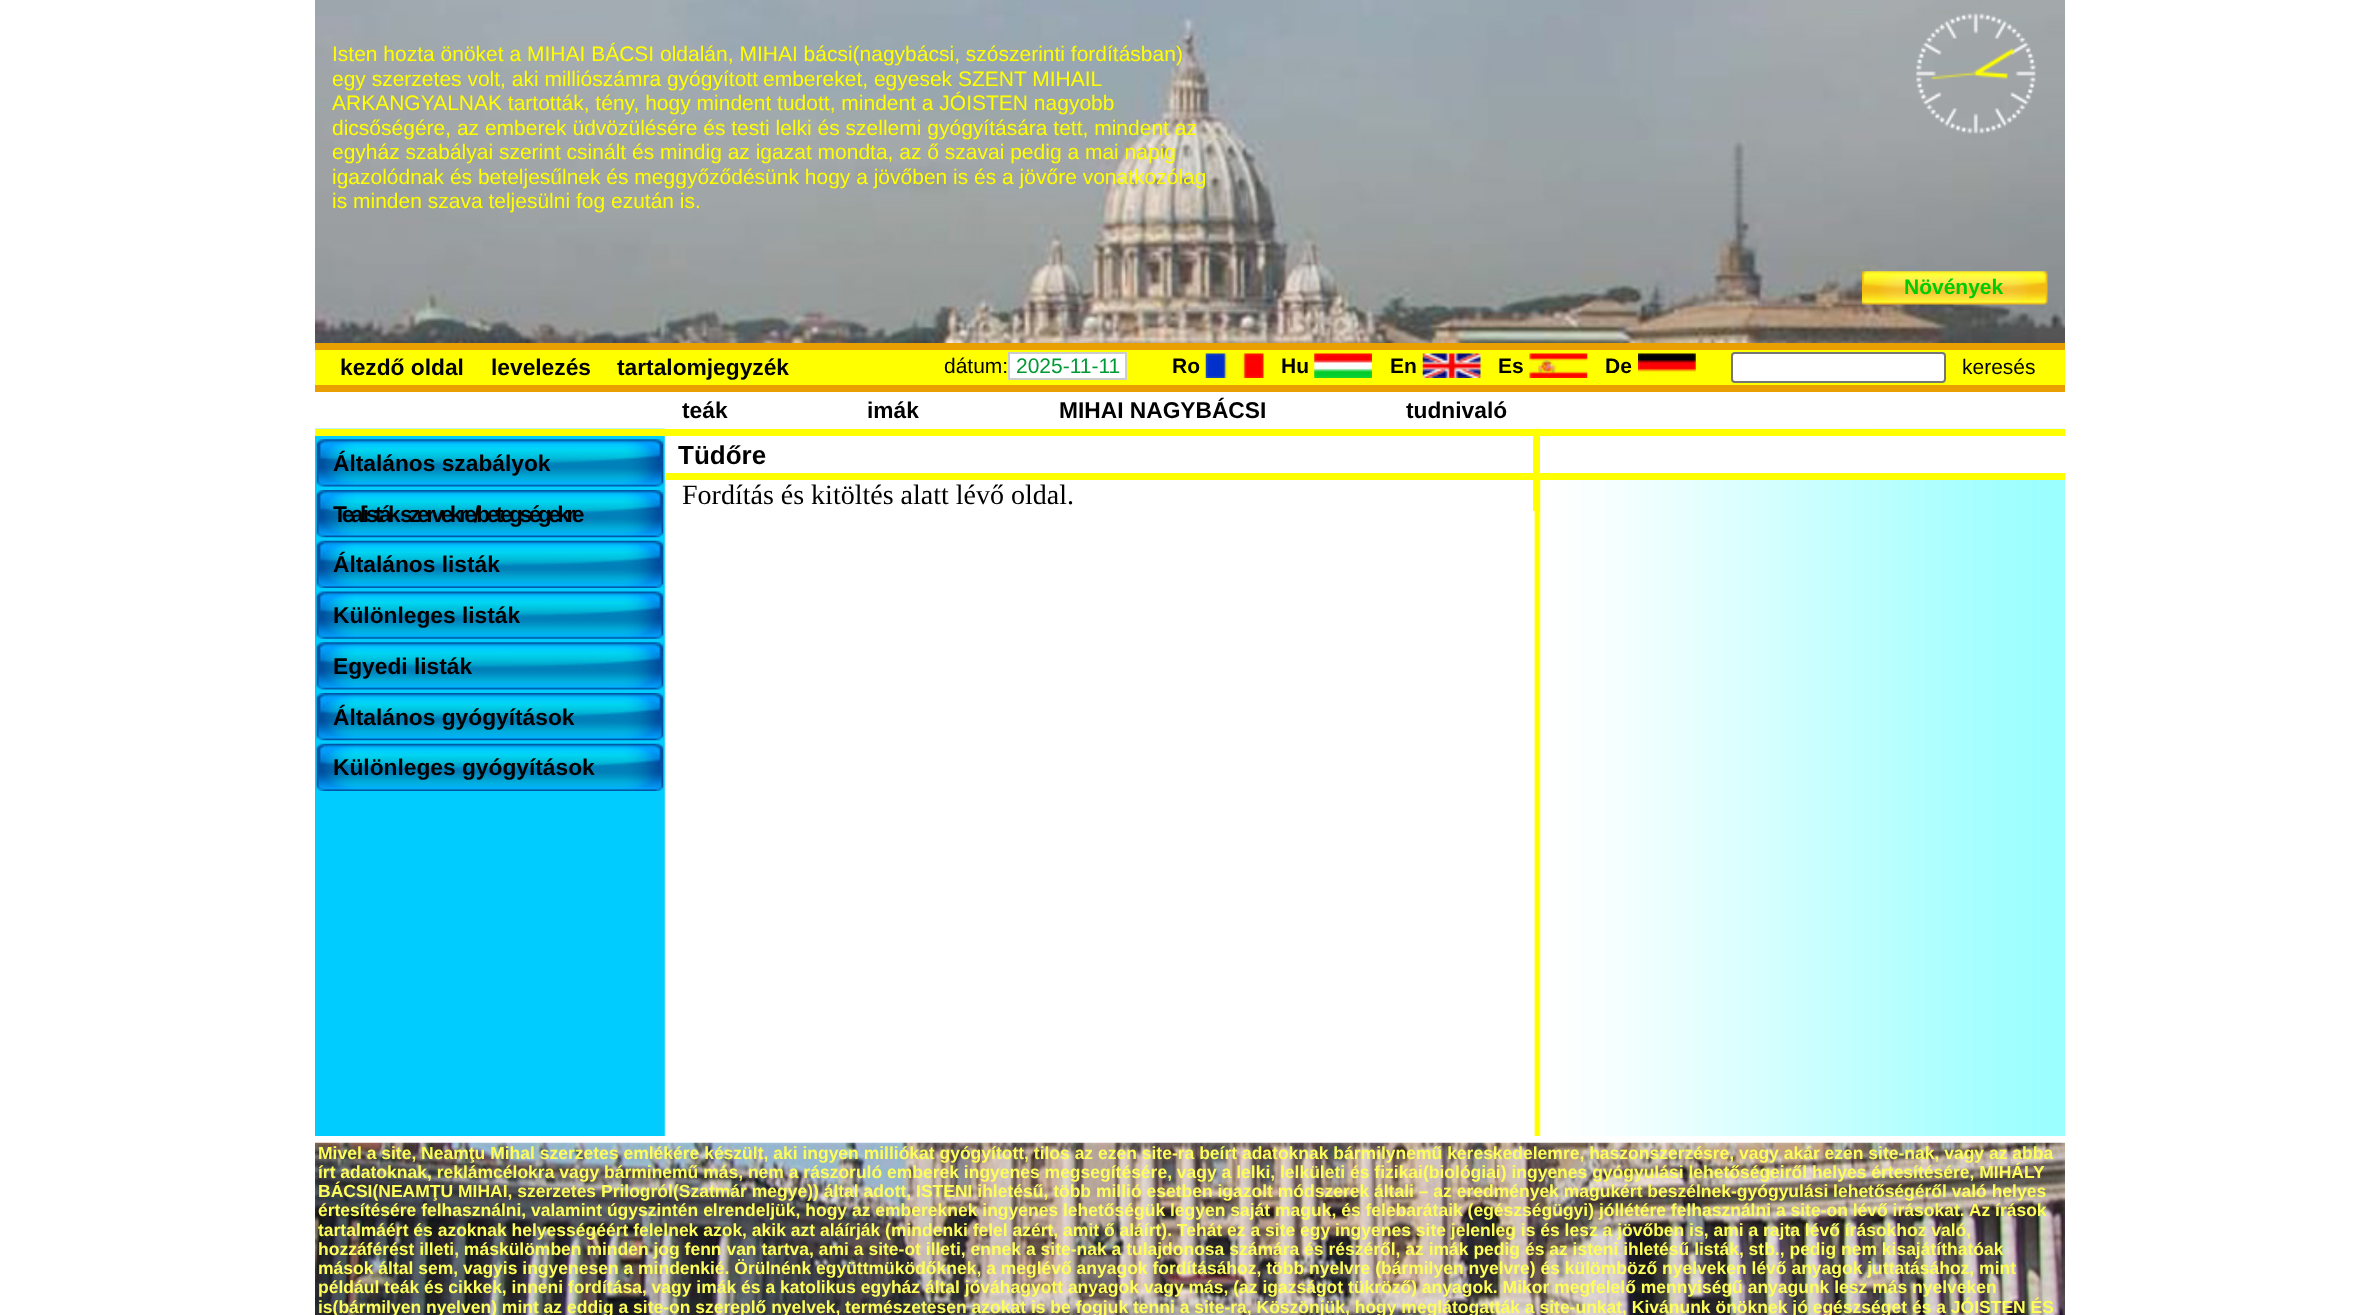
<svg xmlns="http://www.w3.org/2000/svg" width="2378" height="1315">
<style>
.a{font:21px Liberation Sans;fill:#ff0}
.b{font:bold 21px Liberation Sans;fill:#0c0}
.c{font:bold 22.75px Liberation Sans;fill:#000}
.d{font:21px Liberation Sans;fill:#000}
.e{font:21px Liberation Sans;fill:#093}
.f{font:bold 21px Liberation Sans;fill:#000}
.g{font:bold 22.75px Liberation Sans;letter-spacing:-3.5px;fill:#000}
.h{font:bold 26px Liberation Sans;fill:#000}
.i{font:28px Liberation Serif;fill:#000}
.j{font:bold 17.5px Liberation Sans;fill:#fefe5a}
</style>
<rect width="100%" height="100%" fill="#fff"/>
<image href="1.png" x="315" y="0" width="1750" height="343"/>
<image href="2.png" x="1916" y="13" width="120" height="121"/>
<image href="3.png" x="1862" y="271" width="186" height="34"/>
<path fill="#ff0" d="M315 350h1750v35H315z"/>
<path fill="#e99f00" d="M315 343h1750v7H315z"/>
<path fill="#e99f00" d="M315 385h1750v7H315z"/>
<path fill="#fff" stroke="#ccc" stroke-width="2" d="M1009 353h117v26H1009z"/>
<image href="4.png" x="1205" y="353" width="59" height="25"/>
<image href="5.png" x="1314" y="353" width="58" height="25"/>
<image href="6.png" x="1422" y="353" width="59" height="25"/>
<image href="7.png" x="1529" y="353" width="59" height="25"/>
<image href="8.png" x="1638" y="353" width="58" height="25"/>
<rect fill="#fff" stroke="#767676" stroke-width="2" x="1732" y="353" width="213" height="29" rx="3"/>
<image href="9.png" x="315" y="428" width="1750" height="708"/>
<path fill="#ff0" d="M315 429h1750v7H315z"/>
<image href="10.png" x="316" y="439" width="348" height="48"/>
<image href="11.png" x="316" y="490" width="348" height="48"/>
<image href="12.png" x="316" y="540" width="348" height="48"/>
<image href="13.png" x="316" y="591" width="348" height="48"/>
<image href="10.png" x="316" y="642" width="348" height="48"/>
<image href="11.png" x="316" y="693" width="348" height="48"/>
<image href="12.png" x="316" y="743" width="348" height="48"/>
<path fill="#ff0" d="M1533 436h7v75H1533z"/>
<path fill="#fff" d="M665 436h1v37H665z"/>
<path fill="#ff0" d="M665 473h868v7H665z"/>
<path fill="#fff" d="M1540 436h525v37H1540z"/>
<path fill="#ff0" d="M1540 473h525v7H1540z"/>
<image href="14.png" x="315" y="1142" width="1750" height="173"/>
<text class="a" x="332" y="61">Isten hozta önöket a MIHAI BÁCSI oldalán, MIHAI bácsi(nagybácsi, szószerinti fordításban)</text>
<text class="a" x="332" y="86">egy szerzetes volt, aki milliószámra gyógyított</text>
<text class="a" x="763" y="86">embereket, egyesek SZENT MIHAIL</text>
<text class="a" x="332" y="110">ARKANGYALNAK tartották, tény, hogy mindent tudott, mindent a JÓISTEN nagyobb</text>
<text class="a" x="332" y="135">dicsőségére, az emberek üdvözülésére és testi lelki és szellemi gyógyítására tett, mindent az</text>
<text class="a" x="332" y="159">egyház szabályai szerint csinált és mindig az igazat mondta, az ő szavai pedig a mai napig</text>
<text class="a" x="332" y="184">igazolódnak és beteljesűlnek és meggyőződésünk hogy a jövőben is és a jövőre vonatkozólag</text>
<text class="a" x="332" y="208">is minden szava teljesülni fog ezután is.</text>
<text class="b" x="1904" y="294">Növények</text>
<text class="c" x="340" y="375">kezdő oldal</text>
<text class="c" x="491" y="375">levelezés</text>
<text class="c" x="617" y="375">tartalomjegyzék</text>
<text class="d" x="944" y="373">dátum:</text>
<text class="e" x="1016" y="373">2025-11-11</text>
<text class="f" x="1172" y="373">Ro</text>
<text class="f" x="1281" y="373">Hu</text>
<text class="f" x="1390" y="373">En</text>
<text class="f" x="1498" y="373">Es</text>
<text class="f" x="1605" y="373">De</text>
<text class="d" x="1962" y="374">keresés</text>
<text class="c" x="682" y="418">teák</text>
<text class="c" x="867" y="418">imák</text>
<text class="c" x="1059" y="418">MIHAI NAGYBÁCSI</text>
<text class="c" x="1406" y="418">tudnivaló</text>
<text class="c" x="333" y="471">Általános szabályok</text>
<text class="g" x="333" y="522">Tealisták szervekre/betegségekre</text>
<text class="c" x="333" y="572">Általános listák</text>
<text class="c" x="333" y="623">Különleges listák</text>
<text class="c" x="333" y="674">Egyedi listák</text>
<text class="c" x="333" y="725">Általános gyógyítások</text>
<text class="c" x="333" y="775">Különleges gyógyítások</text>
<text class="h" x="678" y="464">Tüdőre</text>
<text class="i" x="682" y="504">Fordítás és kitöltés alatt lévő oldal.</text>
<text class="j" x="318" y="1159">Mivel a site, Neamţu Mihal szerzetes emlékére készült, aki ingyen milliókat gyógyított, tilos az ezen site-ra beírt adatoknak bármilynemű kereskedelemre, haszonszerzésre, vagy akár ezen site-nak, vagy az abba</text>
<text class="j" x="318" y="1178">írt adatoknak, reklámcélokra vagy bárminemű más, nem a rászoruló emberek ingyenes megsegítésére, vagy a lelki, lelkületi és fizikai(biológiai) ingyenes gyógyulási lehetőségeiről helyes értesítésére, MIHÁLY</text>
<text class="j" x="318" y="1197">BÁCSI(NEAMŢU MIHAI, szerzetes Prilogról(Szatmár megye)) által adott, ISTENI ihletésű, több millió esetben igazolt módszerek általi – az eredmények magukért beszélnek-gyógyulási lehetőségéről való helyes</text>
<text class="j" x="318" y="1216">értesítésére felhasználni, valamint úgyszintén elrendeljük, hogy az embereknek ingyenes lehetőségük legyen saját maguk, és felebarátaik (egészségügyi) jóllétére felhasználni a site-on lévő irásokat. Az írások</text>
<text class="j" x="318" y="1236">tartalmáért és azoknak helyességéért felelnek azok, akik azt aláírják (mindenki felel azért, amit ő aláírt). Tehát ez a site egy ingyenes site jelenleg is és lesz a jövőben is, ami a rajta lévő írásokhoz való,</text>
<text class="j" x="318" y="1255">hozzáférést illeti, máskülömben minden jog fenn van tartva, ami a site-ot illeti, ennek a site-nak a tulajdonosa számára és részéről, az imák pedig és az isteni ihletésű listák, stb., pedig nem kisajátíthatóak</text>
<text class="j" x="318" y="1274">mások által sem, vagyis ingyenesen a mindenkié. Örülnénk együttmüködőknek, a meglévő anyagok fordításához, több nyelvre (bármilyen nyelvre) és külömböző nyelveken lévő anyagok juttatásához, mint</text>
<text class="j" x="318" y="1293">például teák és cikkek, inneni fordítása, vagy imák és a katolikus egyház által jóváhagyott anyagok vagy más, (az igazságot tükröző) anyagok. Mikor megfelelő mennyiségű anyagunk lesz más nyelveken</text>
<text class="j" x="318" y="1313">is(bármilyen nyelven) mint az eddig a site-on szereplő nyelvek, természetesen azokat is be fogjuk tenni a site-ra, Köszönjük, hogy meglátogatták a site-unkat, Kivánunk önöknek jó egészséget és a JÓISTEN ÉS</text>
</svg>
